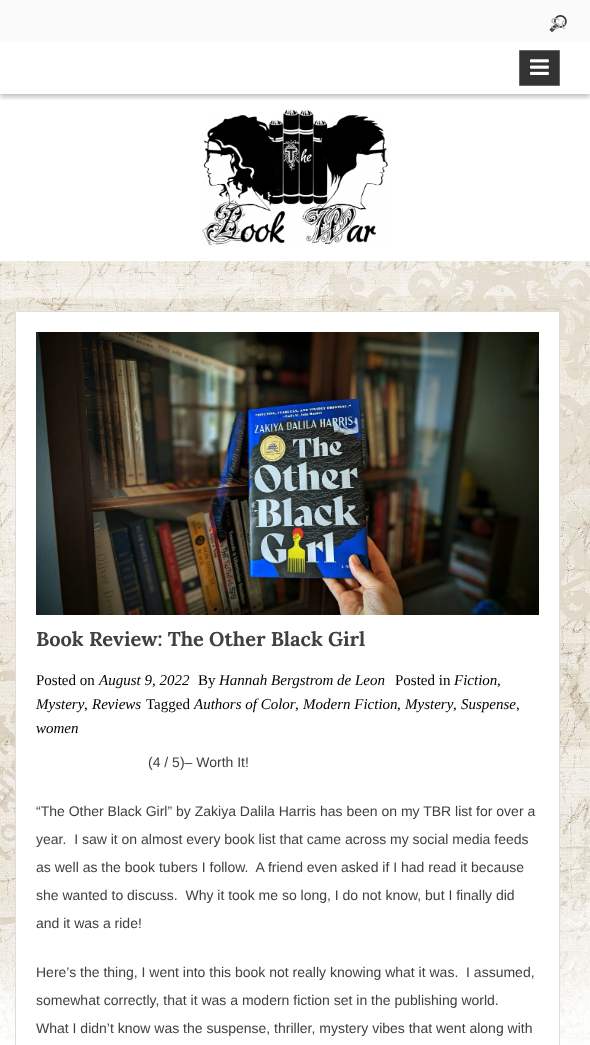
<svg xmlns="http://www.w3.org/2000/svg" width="590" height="1045">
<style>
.a{font:16px Liberation Sans;fill:#bcbcbc}
.b{font:bold 20px Lora;fill:#404040}
.c{font:15px Liberation Serif;fill:#000}
.d{font:italic 15px Liberation Serif;fill:#000}
.e{font:14px Liberation Sans;fill:#404040}
</style>
<defs>
<clipPath id="clip1"><path d="M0 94h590v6H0z"/></clipPath>
<clipPath id="clip2"><path d="M550 15h15v18H550z"/></clipPath>
</defs>
<rect width="100%" height="100%" fill="#fff"/>
<image href="1.png" x="0" y="261" width="590" height="784"/>
<path fill="#fafafa" d="M0 0h590v42H0z"/>
<image href="2.png" x="549" y="15" width="18" height="18"/>
<g clip-path="url(#clip1)">
<path fill="#00000040" filter="blur(2.5px)" d="M0 45h590v52H0z"/>
</g>
<path fill="#333" stroke="#666" d="M519.5 50.5h40v35H519.5z"/>
<image href="3.png" x="530" y="59" width="19" height="16"/>
<image href="4.png" x="202" y="109" width="186" height="137"/>
<path fill="#fff" stroke="#dedddd" d="M15.5 311.5h544v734H15.5z"/>
<image href="5.png" x="36" y="332" width="503" height="283"/>
<g clip-path="url(#clip2)">
<text class="a" x="550" y="29">Se</text>
</g>
<text class="b" x="36" y="646">Book Review: The Other Black Girl</text>
<text class="c" x="36" y="685">Posted on</text>
<text class="d" x="99" y="685">August 9, 2022</text>
<text class="c" x="198" y="685">By</text>
<text class="d" x="219" y="685">Hannah Bergstrom de Leon</text>
<text class="c" x="395" y="685">Posted in</text>
<text class="d" x="454" y="685">Fiction</text>
<text class="c" x="497" y="685">,</text>
<text class="d" x="36" y="709">Mystery</text>
<text class="c" x="84" y="709">,</text>
<text class="d" x="92" y="709">Reviews</text>
<text class="c" x="146" y="709">Tagged</text>
<text class="d" x="194" y="709">Authors of Color</text>
<text class="c" x="295" y="709">,</text>
<text class="d" x="303" y="709">Modern Fiction</text>
<text class="c" x="397" y="709">,</text>
<text class="d" x="405" y="709">Mystery</text>
<text class="c" x="453" y="709">,</text>
<text class="d" x="461" y="709">Suspense</text>
<text class="c" x="516" y="709">,</text>
<text class="d" x="36" y="733">women</text>
<text class="e" x="148" y="767">(4 / 5)– Worth It!</text>
<text class="e" x="36" y="816">“The Other Black Girl” by Zakiya Dalila Harris has been on my TBR list for over a</text>
<text class="e" xml:space="preserve" x="36" y="844">year.  I saw it on almost every book list that came across my social media feeds</text>
<text class="e" xml:space="preserve" x="36" y="872">as well as the book tubers I follow.  A friend even asked if I had read it because</text>
<text class="e" xml:space="preserve" x="36" y="900">she wanted to discuss.  Why it took me so long, I do not know, but I finally did</text>
<text class="e" x="36" y="928">and it was a ride!</text>
<text class="e" xml:space="preserve" x="36" y="977">Here’s the thing, I went into this book not really knowing what it was.  I assumed,</text>
<text class="e" x="36" y="1005">somewhat correctly, that it was a modern fiction set in the publishing world.</text>
<text class="e" x="36" y="1033">What I didn’t know was the suspense, thriller, mystery vibes that went along with</text>
</svg>
